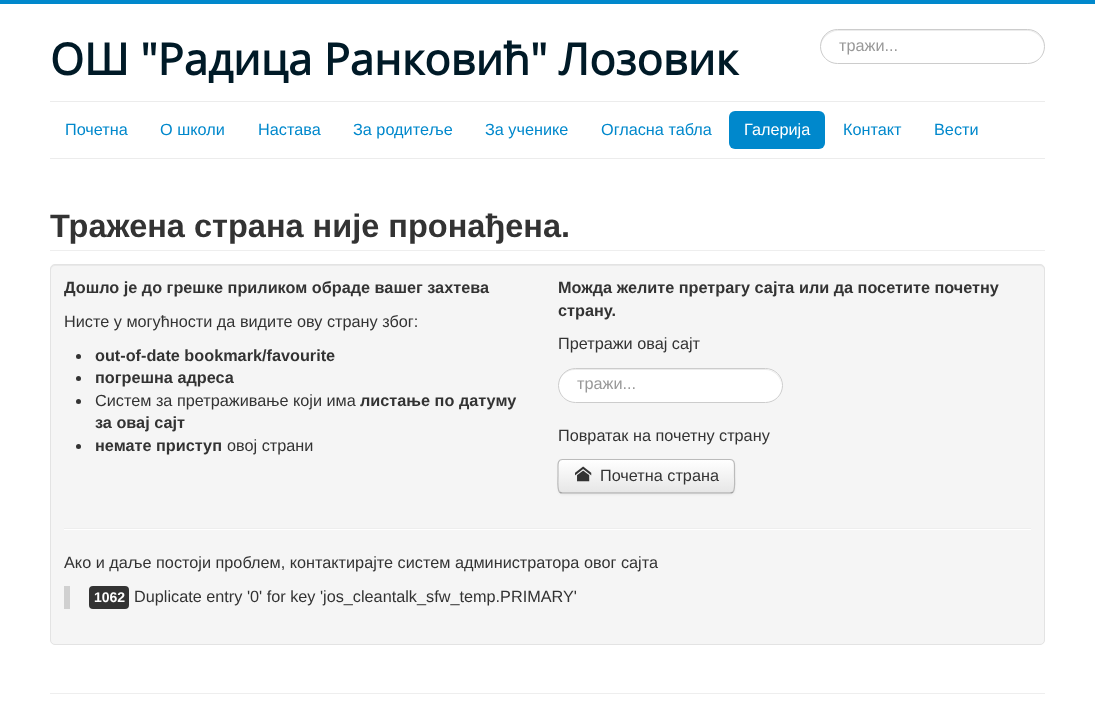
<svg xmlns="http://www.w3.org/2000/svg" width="1095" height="710">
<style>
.a{font:bold 43.6px Open Sans;fill:#001a27}
.b{font:16.25px Liberation Sans;fill:#999}
.c{font:16.25px Liberation Sans;fill:#08c}
.d{font:16.25px Liberation Sans;fill:#fff}
.e{font:bold 32.5px Liberation Sans;fill:#333}
.f{font:bold 16.25px Liberation Sans;fill:#333}
.g{font:16.25px Liberation Sans;fill:#333}
.h{font:bold 14px Liberation Sans;fill:#fff}
</style>
<defs>
<clipPath id="clip1"><rect x="558" y="459" width="177" height="35" rx="5"/></clipPath>
<linearGradient id="g1" gradientUnits="userSpaceOnUse" x1="646" y1="460" x2="646" y2="493"><stop offset="0" stop-color="#fff"/><stop offset="1" stop-color="#e6e6e6"/></linearGradient>
</defs>
<rect width="100%" height="100%" fill="#fff"/>
<path fill="#08c" d="M0 0h1095v4H0z"/>
<path fill="#ececec" d="M838 31h190c8 0 16 8 16 16c1-24-36-17-48-17h-127c-12 0-49-7-48 17c0-8 8-16 17-16z"/>
<rect fill="none" stroke="#ccc" x="820.5" y="29.5" width="224" height="34" rx="17"/>
<path fill="#ececec" d="M50 101h995v1H50z"/>
<path fill="#ececec" d="M50 158h995v1H50z"/>
<rect fill="#08c" x="729" y="111" width="96" height="38" rx="6"/>
<path fill="#eee" d="M50 250h995v1H50z"/>
<rect fill="#f5f5f5" x="50" y="264" width="995" height="381" rx="5"/>
<path fill="#e9e9e9" d="M55 266h985c2 0 4 2 4 4c0-3-1-5-4-5h-985c-3 0-4 2-4 5c0-2 2-4 4-4z"/>
<rect fill="none" stroke="#e3e3e3" x="50.5" y="264.5" width="994" height="380" rx="4.5"/>
<circle fill="#333" cx="78.5" cy="356.5" r="2.5"/>
<circle fill="#333" cx="78.5" cy="378.5" r="2.5"/>
<circle fill="#333" cx="78.5" cy="401.5" r="2.5"/>
<circle fill="#333" cx="78.5" cy="446.5" r="2.5"/>
<rect fill="#fff" x="558" y="368" width="225" height="35" rx="17.5"/>
<path fill="#ececec" d="M575 370h190c9 0 16 7 16 15c1-23-36-16-48-16h-126c-12 0-49-7-48 16c0-8 7-15 16-15z"/>
<rect fill="none" stroke="#ccc" x="558.5" y="368.5" width="224" height="34" rx="17"/>
<rect fill="#0000000d" filter="blur(1px)" x="558" y="460" width="177" height="35" rx="5"/>
<rect fill="#f5f5f5" x="558" y="459" width="177" height="35" rx="5"/>
<g clip-path="url(#clip1)">
<path fill="url(#g1)" d="M558 460h177v33H558z"/>
</g>
<path fill="none" stroke="#a2a2a2" stroke-width="1.2" d="M733 492c-.5 .5-2 1-3 1h-167.5c-1 0-2.5-.5-3-1"/>
<path fill="none" stroke="#bbb" stroke-width="1.2" d="M559.5 492c-2.5-2.5-1.5-12.5-1.5-16v-8c0-3.5-.5-8.5 4.5-8.5h167.5c5 0 4.5 5 4.5 8.5v8c0 3.5 1 13.5-1.5 16"/>
<image href="1.png" x="575" y="466" width="17" height="16"/>
<path fill="#eee" d="M64 528h967v1H64z"/>
<path fill="#fff" d="M64 529h967v1H64z"/>
<path fill="#d0d0d0" d="M64 586h6v23H64z"/>
<rect fill="#333" x="89" y="586" width="40" height="23" rx="4"/>
<path fill="#eee" d="M50 693h995v1H50z"/>
<text class="a" x="50" y="75">ОШ "Радица Ранковић" Лозовик</text>
<text class="b" x="839" y="51">тражи...</text>
<text class="c" x="65" y="135">Почетна</text>
<text class="c" x="160" y="135">О школи</text>
<text class="c" x="258" y="135">Настава</text>
<text class="c" x="353" y="135">За родитеље</text>
<text class="c" x="485" y="135">За ученике</text>
<text class="c" x="601" y="135">Огласна табла</text>
<text class="d" x="744" y="135">Галерија</text>
<text class="c" x="843" y="135">Контакт</text>
<text class="c" x="934" y="135">Вести</text>
<text class="e" x="50" y="237">Тражена страна није пронађена.</text>
<text class="f" x="64" y="293">Дошло је до грешке приликом обраде вашег захтева</text>
<text class="g" x="64" y="327">Нисте у могућности да видите ову страну због:</text>
<text class="f" x="95" y="361">out-of-date bookmark/favourite</text>
<text class="f" x="95" y="383">погрешна адреса</text>
<text class="g" x="95" y="406">Систем за претраживање који има</text>
<text class="f" x="360" y="406">листање по датуму</text>
<text class="f" x="95" y="428">за овај сајт</text>
<text class="f" x="95" y="451">немате приступ</text>
<text class="g" x="227" y="451">овој страни</text>
<text class="f" x="558" y="293">Можда желите претрагу сајта или да посетите почетну</text>
<text class="f" x="558" y="316">страну.</text>
<text class="g" x="558" y="349">Претражи овај сајт</text>
<text class="b" x="577" y="389">тражи...</text>
<text class="g" x="558" y="441">Повратак на почетну страну</text>
<text class="g" x="600" y="481">Почетна страна</text>
<text class="g" x="64" y="568">Ако и даље постоји проблем, контактирајте систем администратора овог сајта</text>
<text class="h" x="94" y="602">1062</text>
<text class="g" x="134" y="602">Duplicate entry '0' for key 'jos_cleantalk_sfw_temp.PRIMARY'</text>
</svg>
